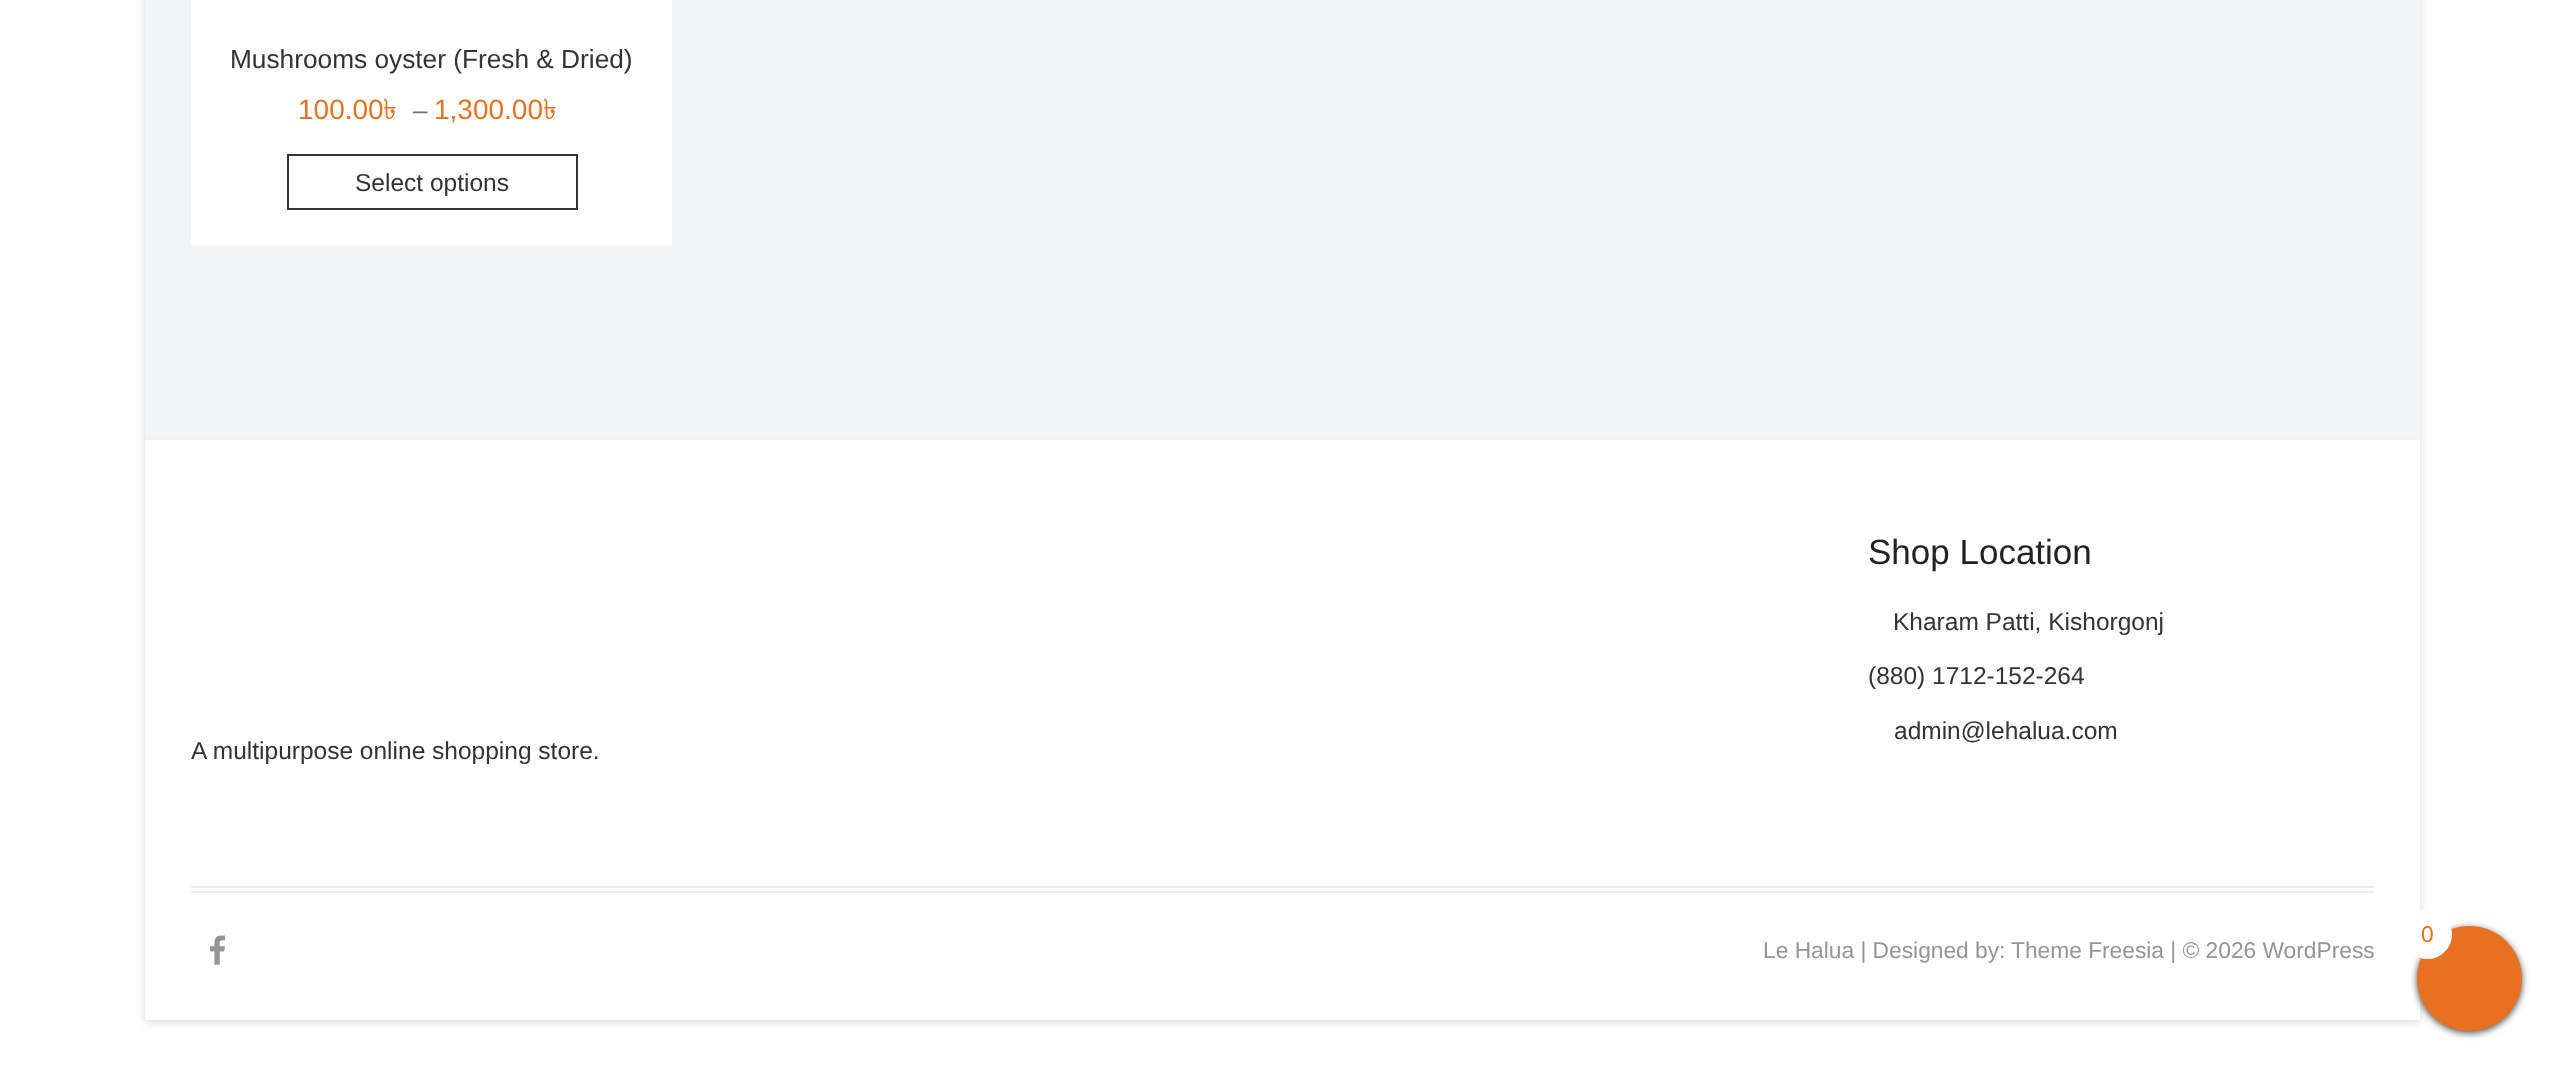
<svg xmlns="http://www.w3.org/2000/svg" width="2564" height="1069">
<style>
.a{font:26.25px Liberation Sans;fill:#333}
.b{font:28px Liberation Sans;fill:#e87121}
.c{font:28px Lohit Bengali;fill:#e87121}
.d{font:26.25px Liberation Sans;fill:#747474}
.e{font:24.5px Liberation Sans;fill:#333}
.f{font:35px Liberation Sans;fill:#222}
.g{font:22.75px Liberation Sans;fill:#969595}
.h{font:22.75px Liberation Sans;fill:#e87121}
</style>
<rect width="100%" height="100%" fill="#fff"/>
<path fill="#00000026" filter="blur(5px)" d="M145 -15h2275v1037H145z"/>
<path fill="#f3f4f8" d="M145 0h2275v438H145z"/>
<path fill="#fff" d="M191 0h481v245H191z"/>
<path fill="none" stroke="#333" stroke-width="2" d="M288 155h289v54H288z"/>
<path fill="#fff" d="M145 440h2275v580H145z"/>
<path fill="#f2f2f2" d="M145 438h2275v2H145z"/>
<path fill="#ededed" d="M191 891h2184v2H191z"/>
<path fill="#ededed" d="M191 886h2184v2H191z"/>
<image href="1.png" x="209" y="935" width="17" height="30"/>
<rect fill="#4c4c4c" filter="blur(3.5px)" x="2417" y="928" width="105" height="105" rx="52.5"/>
<circle fill="#e87121" cx="2469.5" cy="978.5" r="52.5"/>
<circle fill="#fff" cx="2427.5" cy="934.5" r="24.5"/>
<text class="a" x="230" y="68">Mushrooms oyster (Fresh &amp; Dried)</text>
<text class="b" x="298" y="119">100.00</text>
<text class="c" x="383" y="119">৳</text>
<text class="d" x="413" y="119">–</text>
<text class="b" x="434" y="119">1,300.00</text>
<text class="c" x="543" y="119">৳</text>
<text class="e" x="355" y="191">Select options</text>
<text class="f" x="1868" y="564">Shop Location</text>
<text class="e" x="1893" y="630">Kharam Patti, Kishorgonj</text>
<text class="e" x="1868" y="684">(880) 1712-152-264</text>
<text class="e" x="1894" y="739">admin@lehalua.com</text>
<text class="e" x="191" y="759">A multipurpose online shopping store.</text>
<text class="g" x="1763" y="958">Le Halua | Designed by:</text>
<text class="g" x="2011" y="958">Theme Freesia | © 2026 WordPress</text>
<text class="h" x="2421" y="942">0</text>
</svg>
